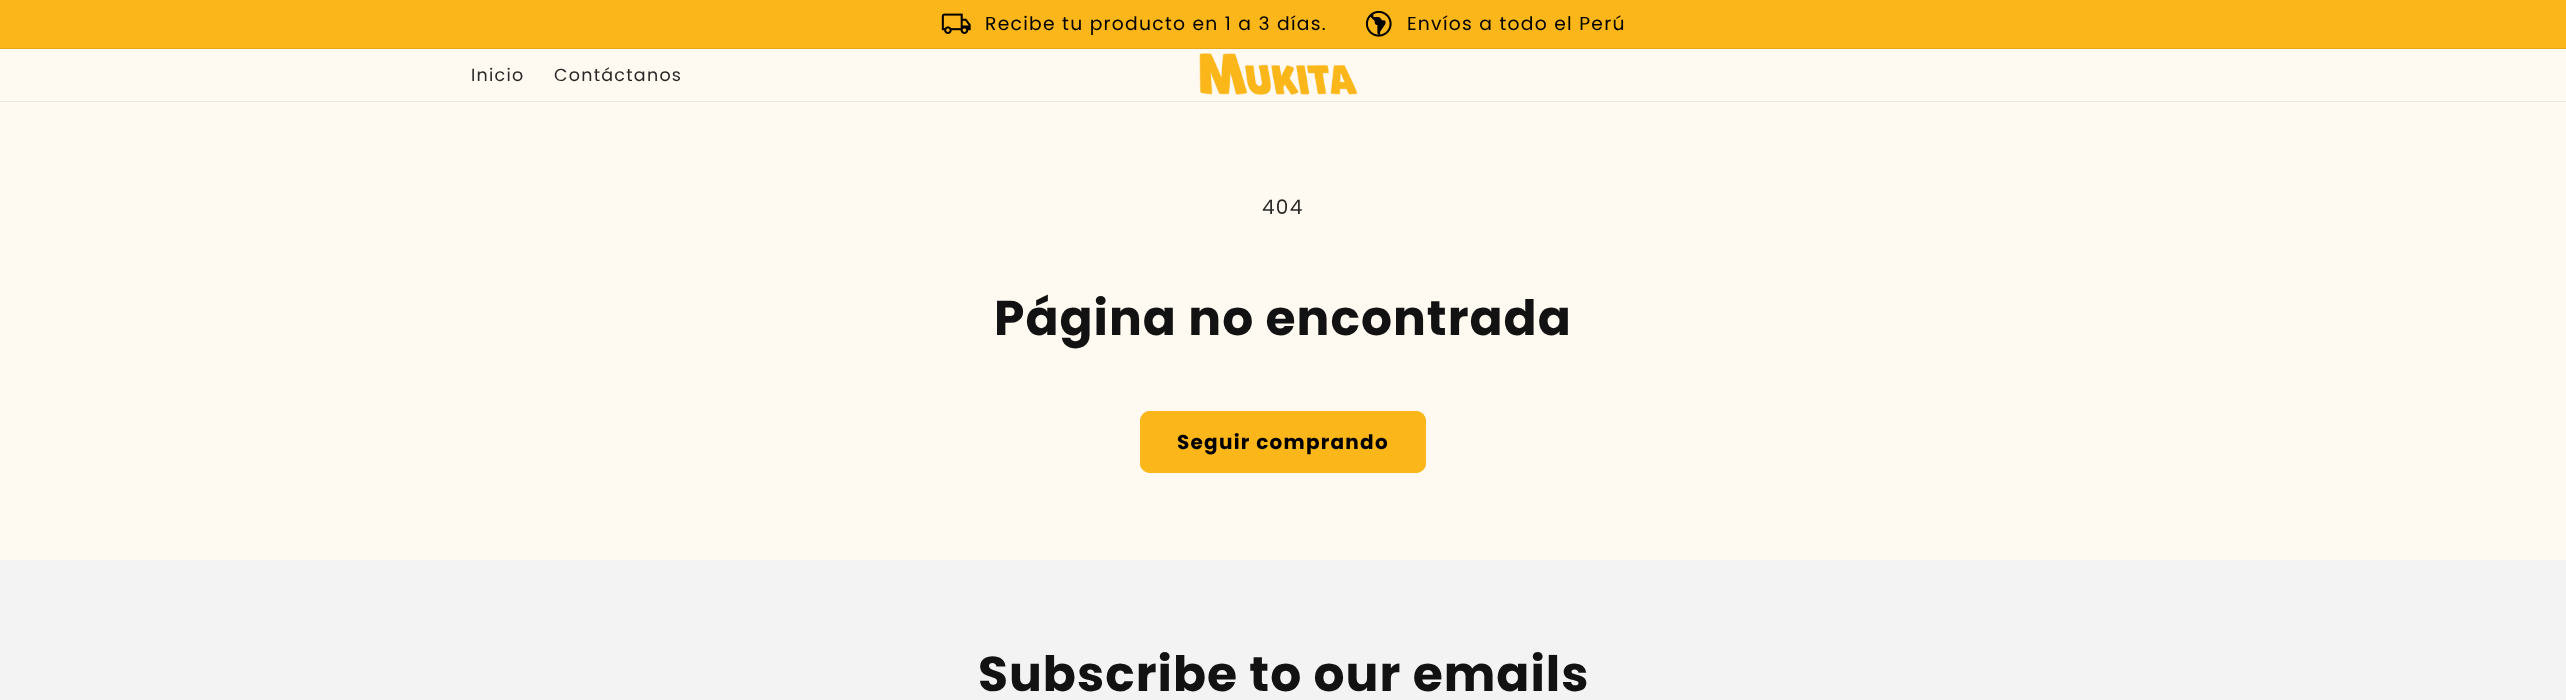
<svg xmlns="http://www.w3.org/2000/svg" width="2566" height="700">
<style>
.a{font:18.75px Poppins;letter-spacing:1.25px;fill:#000}
.b{font:17.5px Poppins;letter-spacing:1.25px;fill:#2a2928}
.c{font:20px Poppins;letter-spacing:1.25px;fill:#2a2928}
.d{font:bold 48.75px Poppins;letter-spacing:1px;fill:#121212}
.e{font:bold 20px Poppins;letter-spacing:1.25px;fill:#000}
</style>
<rect width="100%" height="100%" fill="#fffaf1"/>
<path fill="#fbb61a" d="M0 0h2566v48H0z"/>
<path fill="#e7a718" d="M0 48h2566v1H0z"/>
<image href="1.png" x="941" y="13" width="30" height="21"/>
<image href="2.png" x="1365" y="10" width="27" height="27"/>
<path fill="#ece7df" d="M0 101h2566v1H0z"/>
<image href="3.png" x="1199" y="53" width="159" height="42"/>
<rect fill="#fbb61a" x="1140" y="411" width="286" height="62" rx="10"/>
<rect fill="none" stroke="#fbb61a" stroke-width="3" x="1141.5" y="412.5" width="283" height="59" rx="8.5"/>
<path fill="#f3f3f3" d="M0 560h2566v140H0z"/>
<text class="a" x="985" y="30">Recibe tu producto en 1 a 3 días.</text>
<text class="a" x="1407" y="30">Envíos a todo el Perú</text>
<text class="b" x="471" y="81">Inicio</text>
<text class="b" x="554" y="81">Contáctanos</text>
<text class="c" x="1262" y="214">404</text>
<text class="d" x="994" y="335">Página no encontrada</text>
<text class="e" x="1177" y="449">Seguir comprando</text>
<text class="d" x="978" y="691">Subscribe to our emails</text>
</svg>
